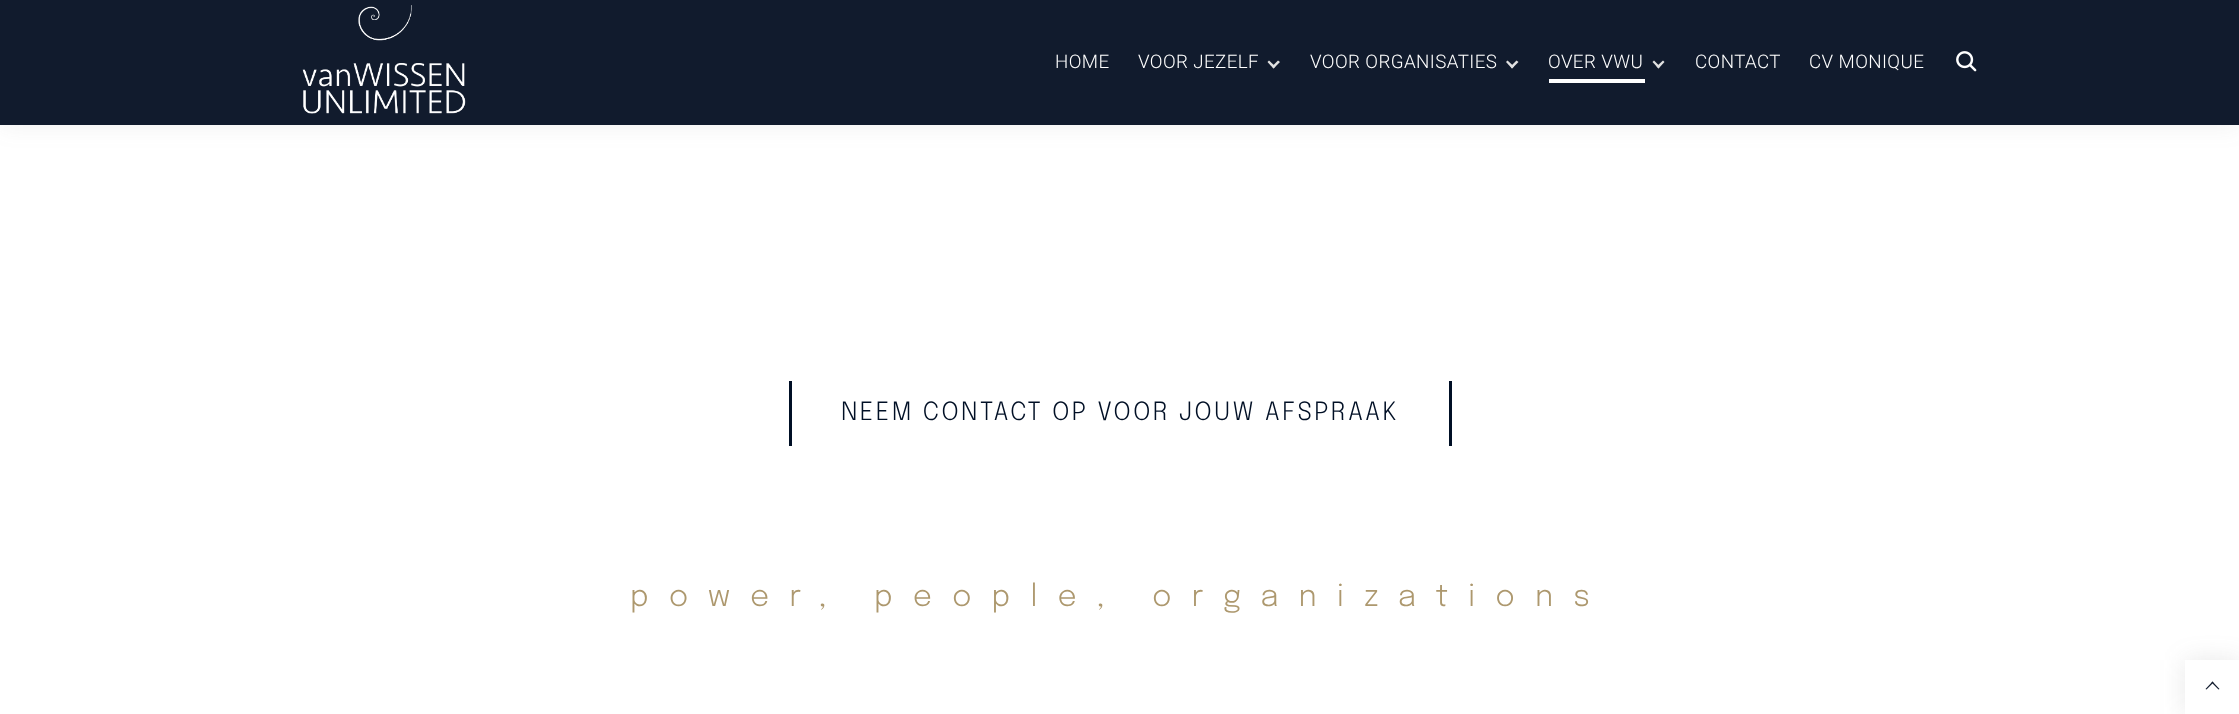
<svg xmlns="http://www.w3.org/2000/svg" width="2239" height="714">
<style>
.a{font:300 18.75px Roboto;letter-spacing:0.4px;fill:#fff}
.b{font:300 25px Epilogue;letter-spacing:2.5px;fill:#000f25}
.c{font:300 30px Epilogue;letter-spacing:20px;fill:#ad986e}
</style>
<defs>
<clipPath id="clip1"><path d="M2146 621h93v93h-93zm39 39h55v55h-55z" clip-rule="evenodd"/></clipPath>
</defs>
<rect width="100%" height="100%" fill="#fff"/>
<path fill="#6464641a" filter="blur(12.5px)" d="M0 0h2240v125H0z"/>
<path fill="#111b2d" d="M0 0h2239v125H0z"/>
<image href="1.png" x="302" y="5" width="164" height="109"/>
<path fill="#e1e1e1" d="M1280 62l-6.5 6.5l-1.5-2l6-6z"/>
<path fill="#e1e1e1" d="M1275.5 66.5l-2 2l-6-6.5l1.5-1.5z"/>
<path fill="#e1e1e1" d="M1518.5 62l-6.5 6.5l-1.5-2l6-6z"/>
<path fill="#e1e1e1" d="M1514 66.5l-2 2l-6-6.5l1.5-1.5z"/>
<path fill="#fff" d="M1549 79h96v4H1549z"/>
<path fill="#e1e1e1" d="M1664.5 62l-6 6.5l-2-2l6.5-6z"/>
<path fill="#e1e1e1" d="M1660 66.5l-1.5 2l-6-6.5l1.5-1.5z"/>
<image href="2.png" x="1956" y="51" width="21" height="21"/>
<path fill="#000f25" d="M1449 381h3v65H1449z"/>
<path fill="#000f25" d="M789 381h3v65H789z"/>
<g clip-path="url(#clip1)">
<path fill="#64646426" filter="blur(12.5px)" d="M2185 660h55v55H2185z"/>
</g>
<path fill="#111b2d" d="M2205.5 689l7-7.5l1 1l-7 7z"/>
<path fill="#111b2d" d="M2211.5 682.5l1-1l7 7.5l-1 .5z"/>
<text class="a" x="1055" y="68">HOME</text>
<text class="a" x="1138" y="68">VOOR JEZELF</text>
<text class="a" x="1310" y="68">VOOR ORGANISATIES</text>
<text class="a" x="1548" y="68">OVER VWU</text>
<text class="a" x="1695" y="68">CONTACT</text>
<text class="a" x="1809" y="68">CV MONIQUE</text>
<text class="b" x="841" y="420">NEEM CONTACT OP VOOR JOUW AFSPRAAK</text>
<text class="c" x="630" y="606">power, people, organizations</text>
</svg>
